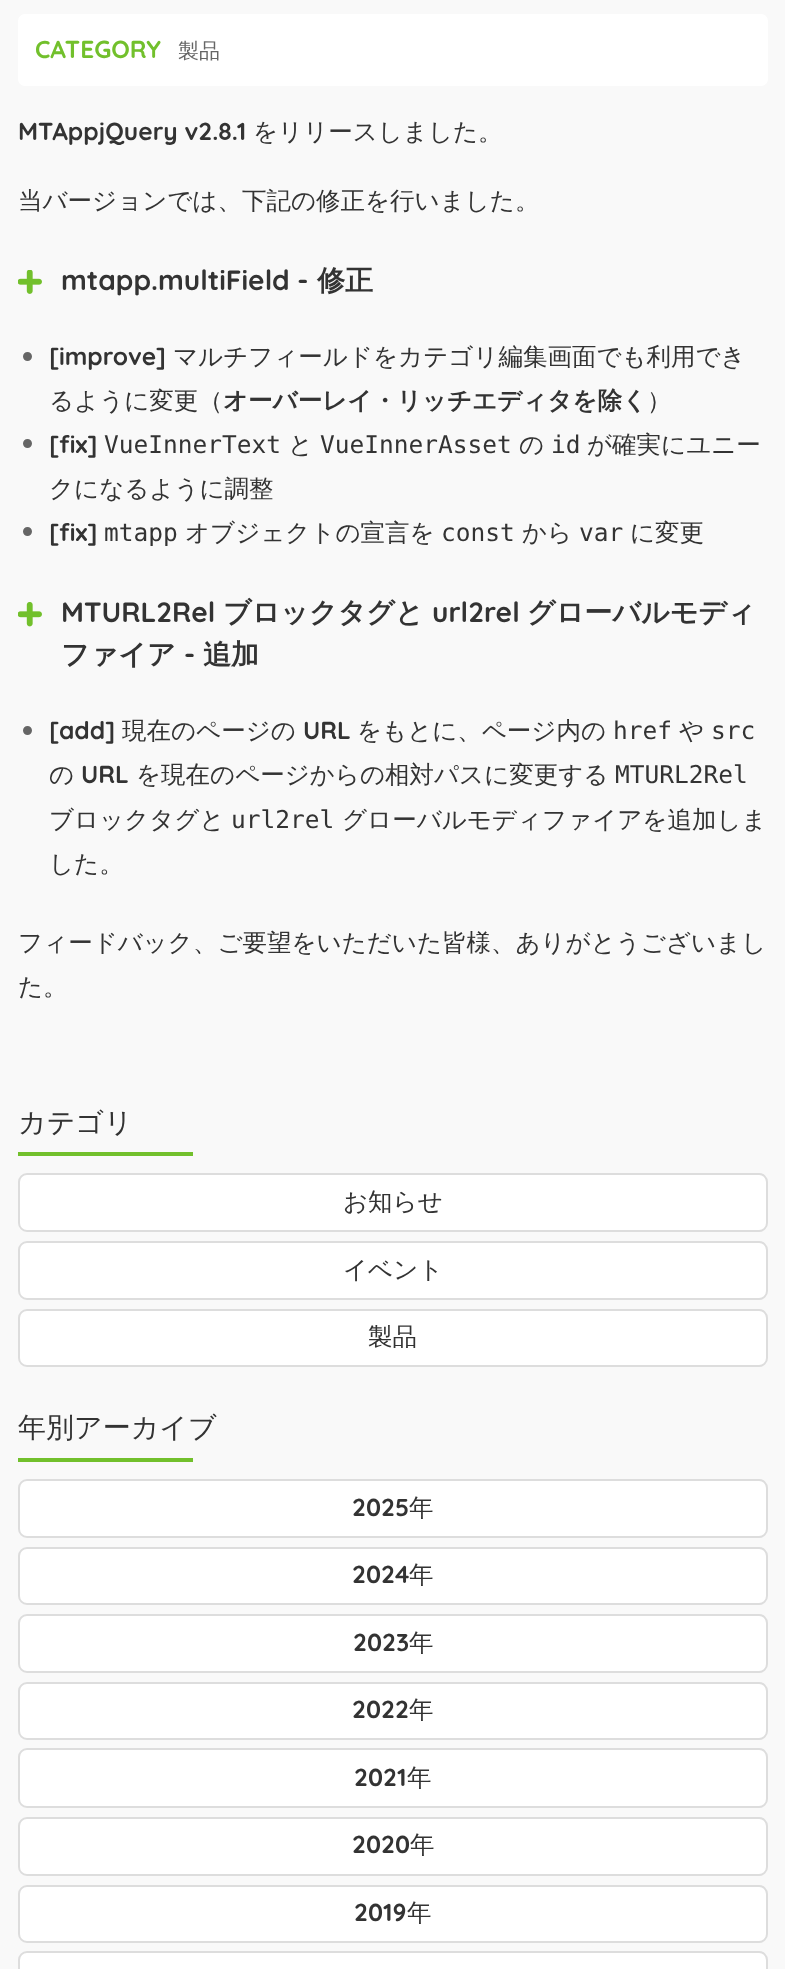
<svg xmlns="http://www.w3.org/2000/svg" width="785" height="1969">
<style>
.a{font:300 24.5px Quicksand;fill:#72c02c}
.b{font:500 21px WenQuanYi Zen Hei;fill:#666}
.c{font:300 24.5px Quicksand;fill:#333}
.d{font:500 24.5px WenQuanYi Zen Hei;fill:#333}
.e{font:300 28px Quicksand;fill:#333}
.f{font:bold 28px WenQuanYi Zen Hei;fill:#333}
.g{font:bold 24.5px WenQuanYi Zen Hei;fill:#333}
.h{font:24.5px DejaVu Sans Mono;fill:#333}
.i{font:500 28px WenQuanYi Zen Hei;fill:#333}
</style>
<rect width="100%" height="100%" fill="#f9f9f9"/>
<rect fill="#fff" x="18" y="14" width="750" height="72" rx="7"/>
<image href="1.png" x="18" y="270" width="24" height="24"/>
<circle fill="#666" stroke="#666" stroke-width="2" cx="27.5" cy="356.5" r="3.5"/>
<circle fill="#666" stroke="#666" stroke-width="2" cx="27.5" cy="443.5" r="3.5"/>
<circle fill="#666" stroke="#666" stroke-width="2" cx="27.5" cy="531.5" r="3.5"/>
<image href="2.png" x="18" y="602" width="24" height="25"/>
<circle fill="#666" stroke="#666" stroke-width="2" cx="27.5" cy="730.5" r="3.5"/>
<path fill="#72c02c" d="M18 1152h175v4H18z"/>
<rect fill="#fff" stroke="#ddd" stroke-width="2" x="19" y="1174" width="748" height="57" rx="8"/>
<rect fill="#fff" stroke="#ddd" stroke-width="2" x="19" y="1242" width="748" height="57" rx="8"/>
<rect fill="#fff" stroke="#ddd" stroke-width="2" x="19" y="1310" width="748" height="56" rx="8"/>
<path fill="#72c02c" d="M18 1458h175v4H18z"/>
<rect fill="#fff" stroke="#ddd" stroke-width="2" x="19" y="1480" width="748" height="57" rx="8"/>
<rect fill="#fff" stroke="#ddd" stroke-width="2" x="19" y="1548" width="748" height="56" rx="8"/>
<rect fill="#fff" stroke="#ddd" stroke-width="2" x="19" y="1615" width="748" height="57" rx="8"/>
<rect fill="#fff" stroke="#ddd" stroke-width="2" x="19" y="1683" width="748" height="56" rx="8"/>
<rect fill="#fff" stroke="#ddd" stroke-width="2" x="19" y="1749" width="748" height="58" rx="8"/>
<rect fill="#fff" stroke="#ddd" stroke-width="2" x="19" y="1818" width="748" height="57" rx="8"/>
<rect fill="#fff" stroke="#ddd" stroke-width="2" x="19" y="1886" width="748" height="56" rx="8"/>
<rect fill="#fff" stroke="#ddd" stroke-width="2" x="19" y="1952" width="748" height="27" rx="8"/>
<text class="a" x="35" y="58">CATEGORY</text>
<text class="b" x="178" y="58">製品</text>
<text class="c" x="18" y="140">MTAppjQuery v2.8.1</text>
<text class="d" x="253" y="140">をリリースしました。</text>
<text class="d" x="18" y="209">当バージョンでは、下記の修正を行いました。</text>
<text class="e" x="61" y="290">mtapp.multiField -</text>
<text class="f" x="317" y="290">修正</text>
<text class="c" x="49" y="365">[improve]</text>
<text class="d" x="173" y="365">マルチフィールドをカテゴリ編集画面でも利用でき</text>
<text class="d" x="49" y="409">るように変更（</text>
<text class="g" x="223" y="409">オーバーレイ・リッチエディタを除く</text>
<text class="d" x="647" y="409">）</text>
<text class="c" x="49" y="453">[fix]</text>
<text class="h" x="104" y="453">VueInnerText</text>
<text class="d" x="288" y="453">と</text>
<text class="h" x="320" y="453">VueInnerAsset</text>
<text class="d" x="519" y="453">の</text>
<text class="h" x="551" y="453">id</text>
<text class="d" x="587" y="453">が確実にユニー</text>
<text class="d" x="49" y="497">クになるように調整</text>
<text class="c" x="49" y="541">[fix]</text>
<text class="h" x="104" y="541">mtapp</text>
<text class="d" x="185" y="541">オブジェクトの宣言を</text>
<text class="h" x="441" y="541">const</text>
<text class="d" x="522" y="541">から</text>
<text class="h" x="579" y="541">var</text>
<text class="d" x="630" y="541">に変更</text>
<text class="e" x="61" y="622">MTURL2Rel</text>
<text class="f" x="223" y="622">ブロックタグと</text>
<text class="e" x="432" y="622">url2rel</text>
<text class="f" x="527" y="622">グローバルモディ</text>
<text class="f" x="61" y="664">ファイア</text>
<text class="e" x="184" y="664">-</text>
<text class="f" x="203" y="664">追加</text>
<text class="c" x="49" y="739">[add]</text>
<text class="d" x="122" y="739">現在のページの</text>
<text class="c" x="303" y="739">URL</text>
<text class="d" x="357" y="739">をもとに、ページ内の</text>
<text class="h" x="613" y="739">href</text>
<text class="d" x="679" y="739">や</text>
<text class="h" x="711" y="739">src</text>
<text class="d" x="49" y="783">の</text>
<text class="c" x="81" y="783">URL</text>
<text class="d" x="136" y="783">を現在のページからの相対パスに変更する</text>
<text class="h" x="615" y="783">MTURL2Rel</text>
<text class="d" x="49" y="828">ブロックタグと</text>
<text class="h" x="231" y="828">url2rel</text>
<text class="d" x="342" y="828">グローバルモディファイアを追加しま</text>
<text class="d" x="49" y="872">した。</text>
<text class="d" x="18" y="951">フィードバック、ご要望をいただいた皆様、ありがとうございまし</text>
<text class="d" x="18" y="995">た。</text>
<text class="i" x="18" y="1132">カテゴリ</text>
<text class="d" x="343" y="1210">お知らせ</text>
<text class="d" x="343" y="1278">イベント</text>
<text class="d" x="368" y="1345">製品</text>
<text class="i" x="18" y="1437">年別アーカイブ</text>
<text class="c" x="352" y="1516">2025</text>
<text class="d" x="409" y="1516">年</text>
<text class="c" x="352" y="1583">2024</text>
<text class="d" x="409" y="1583">年</text>
<text class="c" x="353" y="1651">2023</text>
<text class="d" x="409" y="1651">年</text>
<text class="c" x="352" y="1718">2022</text>
<text class="d" x="409" y="1718">年</text>
<text class="c" x="354" y="1786">2021</text>
<text class="d" x="407" y="1786">年</text>
<text class="c" x="352" y="1853">2020</text>
<text class="d" x="410" y="1853">年</text>
<text class="c" x="354" y="1921">2019</text>
<text class="d" x="407" y="1921">年</text>
</svg>
